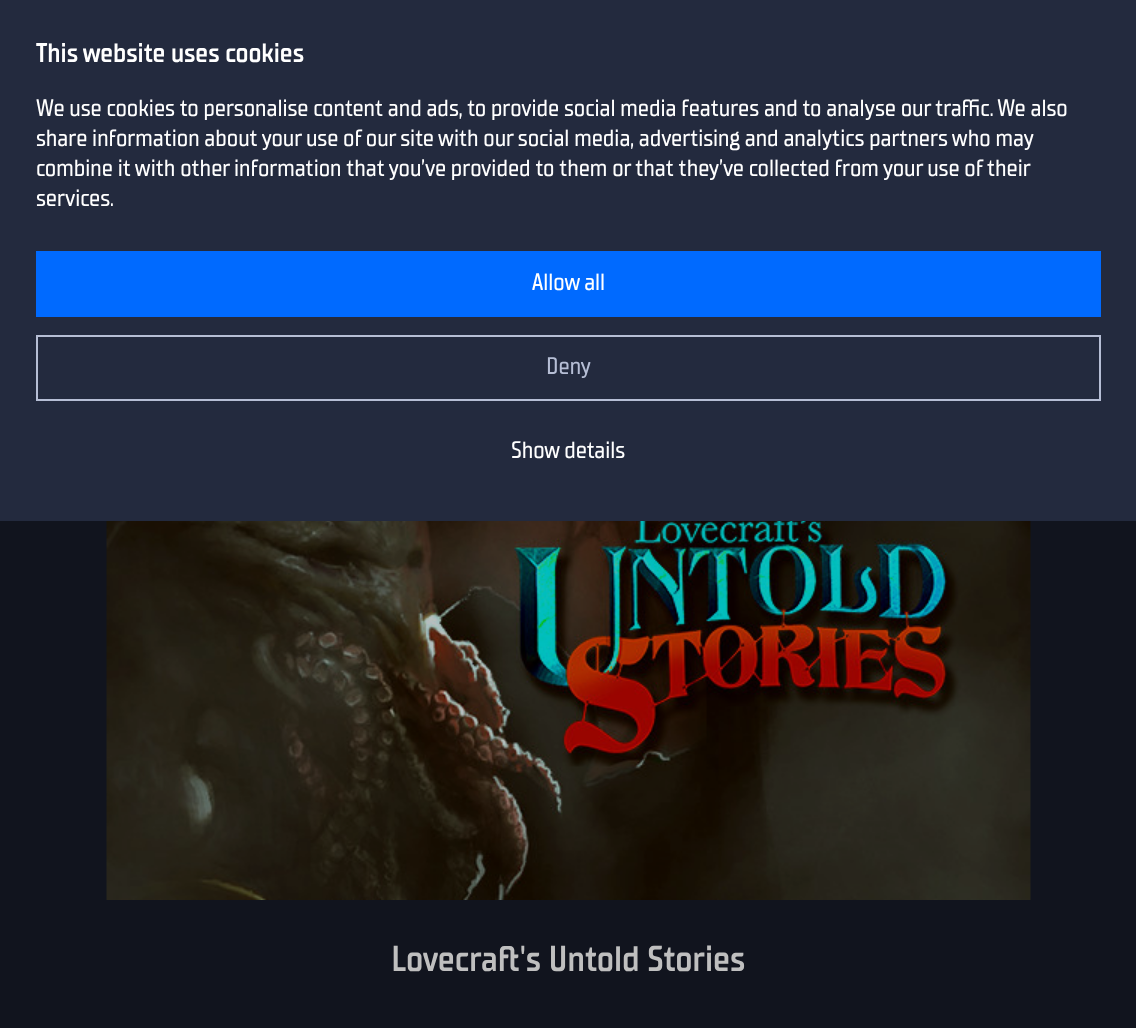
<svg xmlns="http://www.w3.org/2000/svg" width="1136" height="1028">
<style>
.a{font:600 27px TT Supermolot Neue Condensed;fill:#fff}
.b{font:500 24px TT Supermolot Neue Condensed;fill:#fff}
.c{font:500 24px TT Supermolot Neue Condensed;fill:#b6bed5}
.d{font:600 36px TT Supermolot Neue Condensed;fill:#bfbfbf}
</style>
<rect width="100%" height="100%" fill="#11141e"/>
<path fill="#232a3e" d="M0 0h1136v521H0z"/>
<path fill="#006aff" d="M36 251h1065v66H36z"/>
<path fill="none" stroke="#b6bed5" stroke-width="2" d="M37 336h1063v64H37z"/>
<image href="1.png" x="106" y="521" width="925" height="379"/>
<text class="a" x="36" y="62">This website uses cookies</text>
<text class="b" x="36" y="116">We use cookies to personalise content and ads, to provide social media features and to analyse our traffic. We also</text>
<text class="b" x="36" y="146">share information about your use of our site with our social media, advertising and analytics partners who may</text>
<text class="b" x="36" y="176">combine it with other information that you’ve provided to them or that they’ve collected from your use of their</text>
<text class="b" x="36" y="206">services.</text>
<text class="b" x="532" y="290">Allow all</text>
<text class="c" x="546" y="374">Deny</text>
<text class="b" x="511" y="458">Show details</text>
<text class="d" x="391" y="971">Lovecraft's Untold Stories</text>
</svg>
